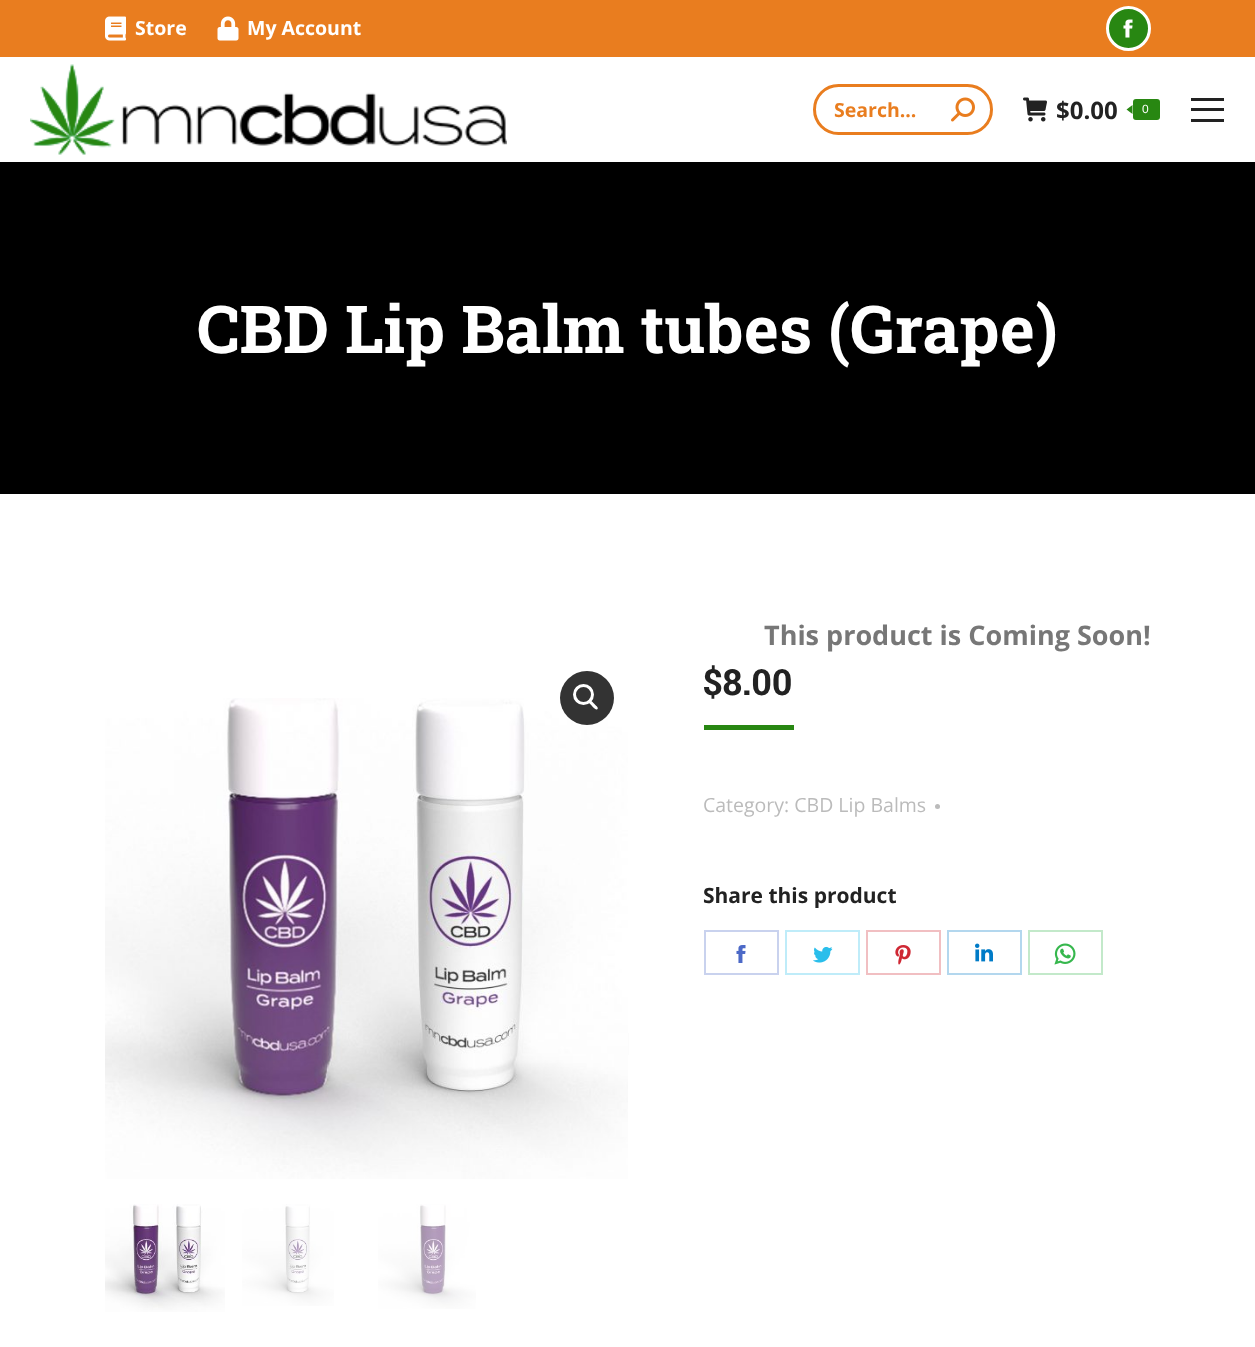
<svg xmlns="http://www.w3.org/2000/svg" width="1255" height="1347">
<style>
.a{font:bold 19.5px Open Sans;fill:#fff}
.b{font:bold 19.5px Open Sans;fill:#e97d1f}
.c{font:bold 24px Open Sans;fill:#222}
.d{font:12px Liberation Sans;fill:#fff}
.e{font:bold 66px Roboto Slab;fill:#fff}
.f{font:bold 27px Open Sans;fill:#777}
.g{font:bold 36px Roboto Slab;fill:#222}
.h{font:19.5px Open Sans;fill:#bbb}
.i{font:bold 21px Open Sans;fill:#222}
</style>
<rect width="100%" height="100%" fill="#fff"/>
<path fill="#e97d1f" d="M0 0h1255v57H0z"/>
<image href="1.png" x="105" y="16" width="21" height="25"/>
<image href="2.png" x="217" y="16" width="22" height="25"/>
<circle fill="#288712" stroke="#fff" stroke-width="3" cx="1128.5" cy="28.5" r="21"/>
<image href="3.png" x="1123" y="19" width="10" height="19"/>
<image href="4.png" x="30" y="64" width="477" height="91"/>
<rect fill="none" stroke="#e97d1f" stroke-width="3" x="814.5" y="85.5" width="177" height="48" rx="24"/>
<image href="5.png" x="951" y="97" width="24" height="25"/>
<image href="6.png" x="1023" y="97" width="24" height="25"/>
<rect fill="#288712" x="1133" y="99" width="27" height="21" rx="3"/>
<path fill="#288712" d="M1132.5 105v9l-6-4.5z"/>
<path fill="#222" d="M1191 98h33v3H1191z"/>
<path fill="#222" d="M1191 108h33v3H1191z"/>
<path fill="#222" d="M1191 119h33v3H1191z"/>
<path fill="#000" d="M0 162h1255v332H0z"/>
<image href="7.png" x="105" y="698" width="523" height="481"/>
<circle fill="#333" cx="587" cy="698" r="27"/>
<circle fill="none" stroke="#fff" stroke-width="3" cx="583.5" cy="694.5" r="9"/>
<path fill="#fff" d="M589 701c1.5-2 4.5 2 5.5 3c.5 1 4.5 3.5 3 5c-1.5 2-4.5-2-5.5-3c-.5-1-4.5-3.5-3-5z"/>
<path fill="#fcfcfc" d="M628 1033h1v22H628z"/>
<image href="8.png" x="105" y="1204" width="120" height="108"/>
<image href="9.png" x="242" y="1204" width="92" height="102"/>
<image href="10.png" x="378" y="1204" width="98" height="105"/>
<path fill="#288712" d="M704 725h90v5H704z"/>
<circle fill="#bbb" cx="937.5" cy="806.5" r="2.5"/>
<path fill="none" stroke="#c9d2ee" stroke-width="2" d="M705 931h73v43H705z"/>
<image href="11.png" x="736" y="945" width="10" height="18"/>
<path fill="none" stroke="#bfecf9" stroke-width="2" d="M786 931h73v43H786z"/>
<image href="12.png" x="813" y="946" width="20" height="17"/>
<path fill="none" stroke="#f1bfc2" stroke-width="2" d="M867 931h73v43H867z"/>
<image href="13.png" x="895" y="945" width="16" height="20"/>
<path fill="none" stroke="#b3d7ee" stroke-width="2" d="M948 931h73v43H948z"/>
<image href="14.png" x="975" y="943" width="18" height="19"/>
<path fill="none" stroke="#c3e9ca" stroke-width="2" d="M1029 931h73v43H1029z"/>
<image href="15.png" x="1054" y="943" width="22" height="22"/>
<text class="a" x="135" y="35">Store</text>
<text class="a" x="247" y="35">My Account</text>
<text class="b" x="834" y="117">Search...</text>
<text class="c" x="1056" y="119">$0.00</text>
<text class="d" x="1142" y="113">0</text>
<text class="e" x="197" y="353">CBD Lip Balm tubes (Grape)</text>
<text class="f" x="764" y="645">This product is Coming Soon!</text>
<text class="g" x="703" y="695">$8.00</text>
<text class="h" x="703" y="812">Category: CBD Lip Balms</text>
<text class="i" x="703" y="903">Share this product</text>
</svg>
